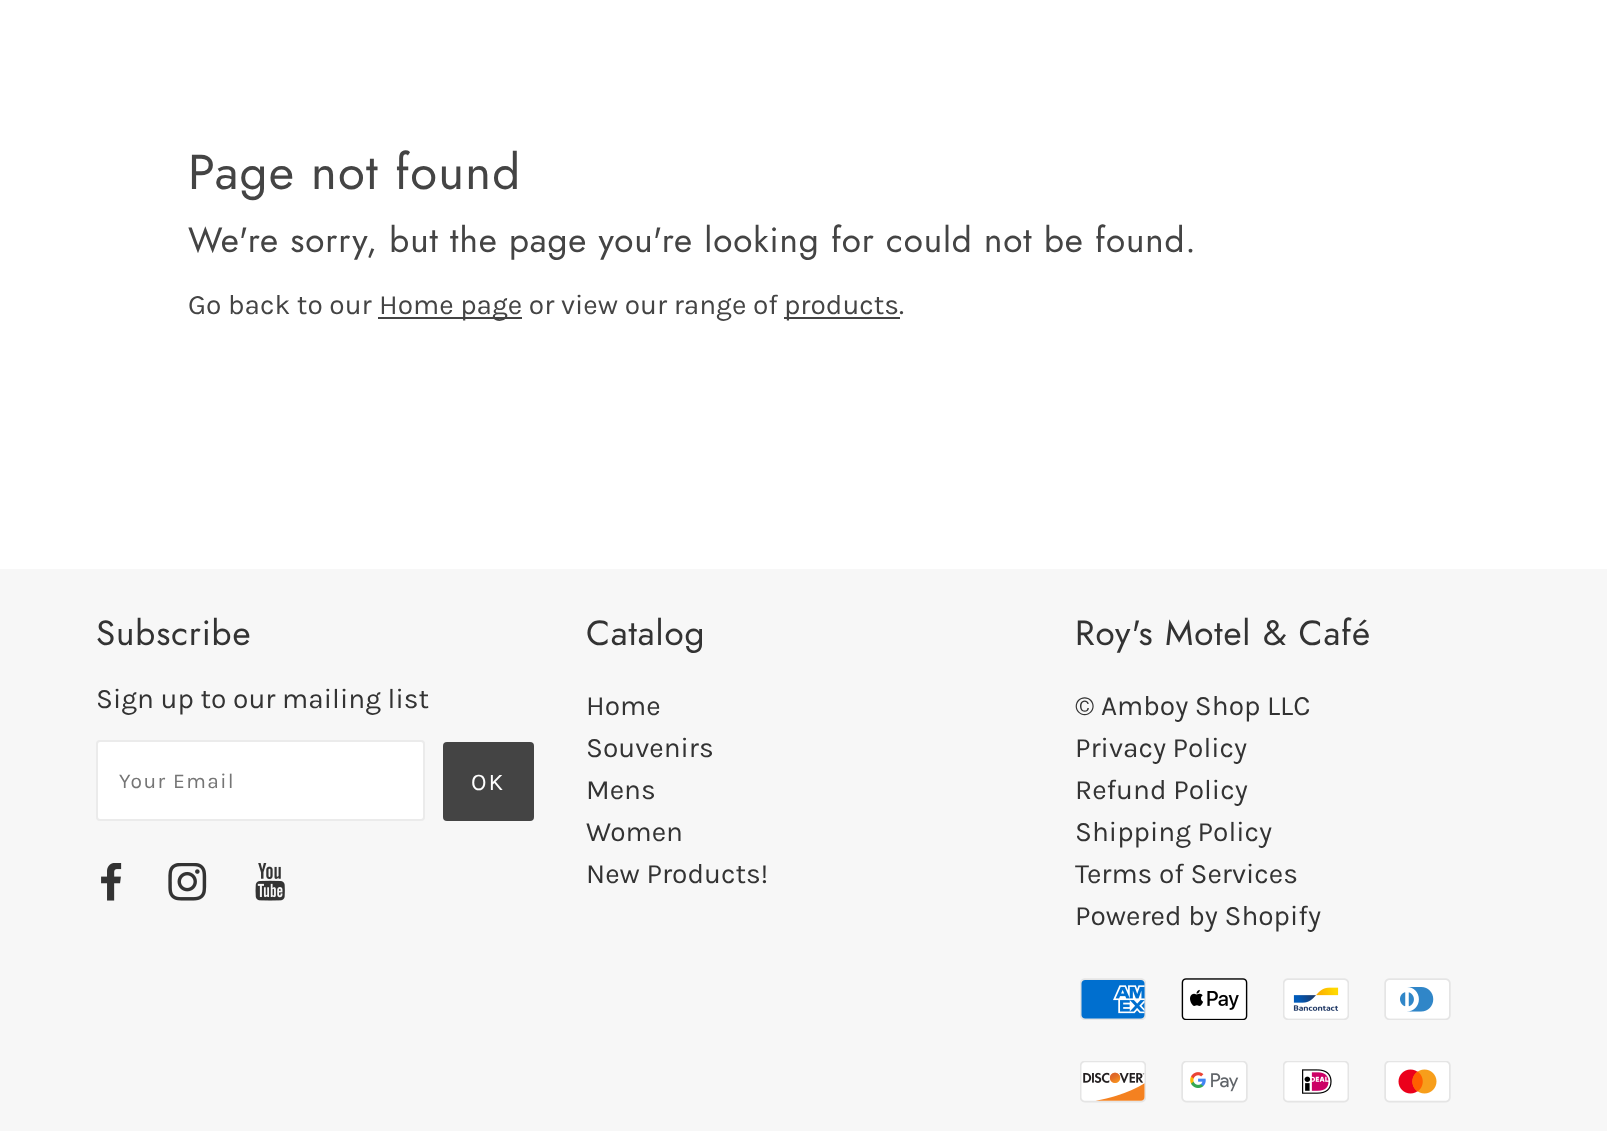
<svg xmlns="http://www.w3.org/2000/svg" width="1607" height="1131">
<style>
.a{font:49px Jost;letter-spacing:1.25px;fill:#444}
.b{font:35px Jost;letter-spacing:0.88px;fill:#444}
.c{font:28px Karla;fill:#444}
.d{font:35px Jost;letter-spacing:0.88px;fill:#333}
.e{font:28px Karla;fill:#333}
.f{font:21px Karla;letter-spacing:1.4px;fill:#757575}
.g{font:24px Karla;letter-spacing:2px;fill:#fff}
</style>
<rect width="100%" height="100%" fill="#fff"/>
<path fill="#444" d="M378 317h144v2H378z"/>
<path fill="#444" d="M784 317h116v2H784z"/>
<path fill="#f7f7f7" d="M0 569h1607v562H0z"/>
<rect fill="#fff" stroke="#ebebeb" stroke-width="2" x="97" y="741" width="327" height="79" rx="3"/>
<rect fill="#444" x="443" y="742" width="91" height="79" rx="4"/>
<image href="1.png" x="101" y="863" width="21" height="38"/>
<image href="2.png" x="168" y="863" width="39" height="38"/>
<image href="3.png" x="255" y="863" width="30" height="38"/>
<image href="4.png" x="1080" y="978" width="66" height="42"/>
<image href="5.png" x="1181" y="978" width="67" height="42"/>
<image href="6.png" x="1283" y="978" width="66" height="42"/>
<image href="7.png" x="1384" y="978" width="67" height="42"/>
<image href="8.png" x="1080" y="1061" width="66" height="42"/>
<image href="9.png" x="1181" y="1061" width="67" height="42"/>
<image href="10.png" x="1283" y="1061" width="66" height="42"/>
<image href="11.png" x="1384" y="1061" width="67" height="42"/>
<text class="a" x="188" y="189">Page not found</text>
<text class="b" x="188" y="252">We're sorry, but the page you're looking for could not be found.</text>
<text class="c" x="188" y="314">Go back to our</text>
<text class="c" x="379" y="314">Home page or view our range of</text>
<text class="c" x="784" y="314">products.</text>
<text class="d" x="96" y="645">Subscribe</text>
<text class="e" x="96" y="708">Sign up to our mailing list</text>
<text class="f" x="119" y="788">Your Email</text>
<text class="g" x="471" y="790">OK</text>
<text class="d" x="586" y="645">Catalog</text>
<text class="e" x="586" y="715">Home</text>
<text class="e" x="586" y="757">Souvenirs</text>
<text class="e" x="586" y="799">Mens</text>
<text class="e" x="586" y="841">Women</text>
<text class="e" x="586" y="883">New Products!</text>
<text class="d" x="1075" y="645">Roy's Motel &amp; Café</text>
<text class="e" x="1075" y="715">© Amboy Shop LLC</text>
<text class="e" x="1075" y="757">Privacy Policy</text>
<text class="e" x="1075" y="799">Refund Policy</text>
<text class="e" x="1075" y="841">Shipping Policy</text>
<text class="e" x="1075" y="883">Terms of Services</text>
<text class="e" x="1075" y="925">Powered by Shopify</text>
</svg>
